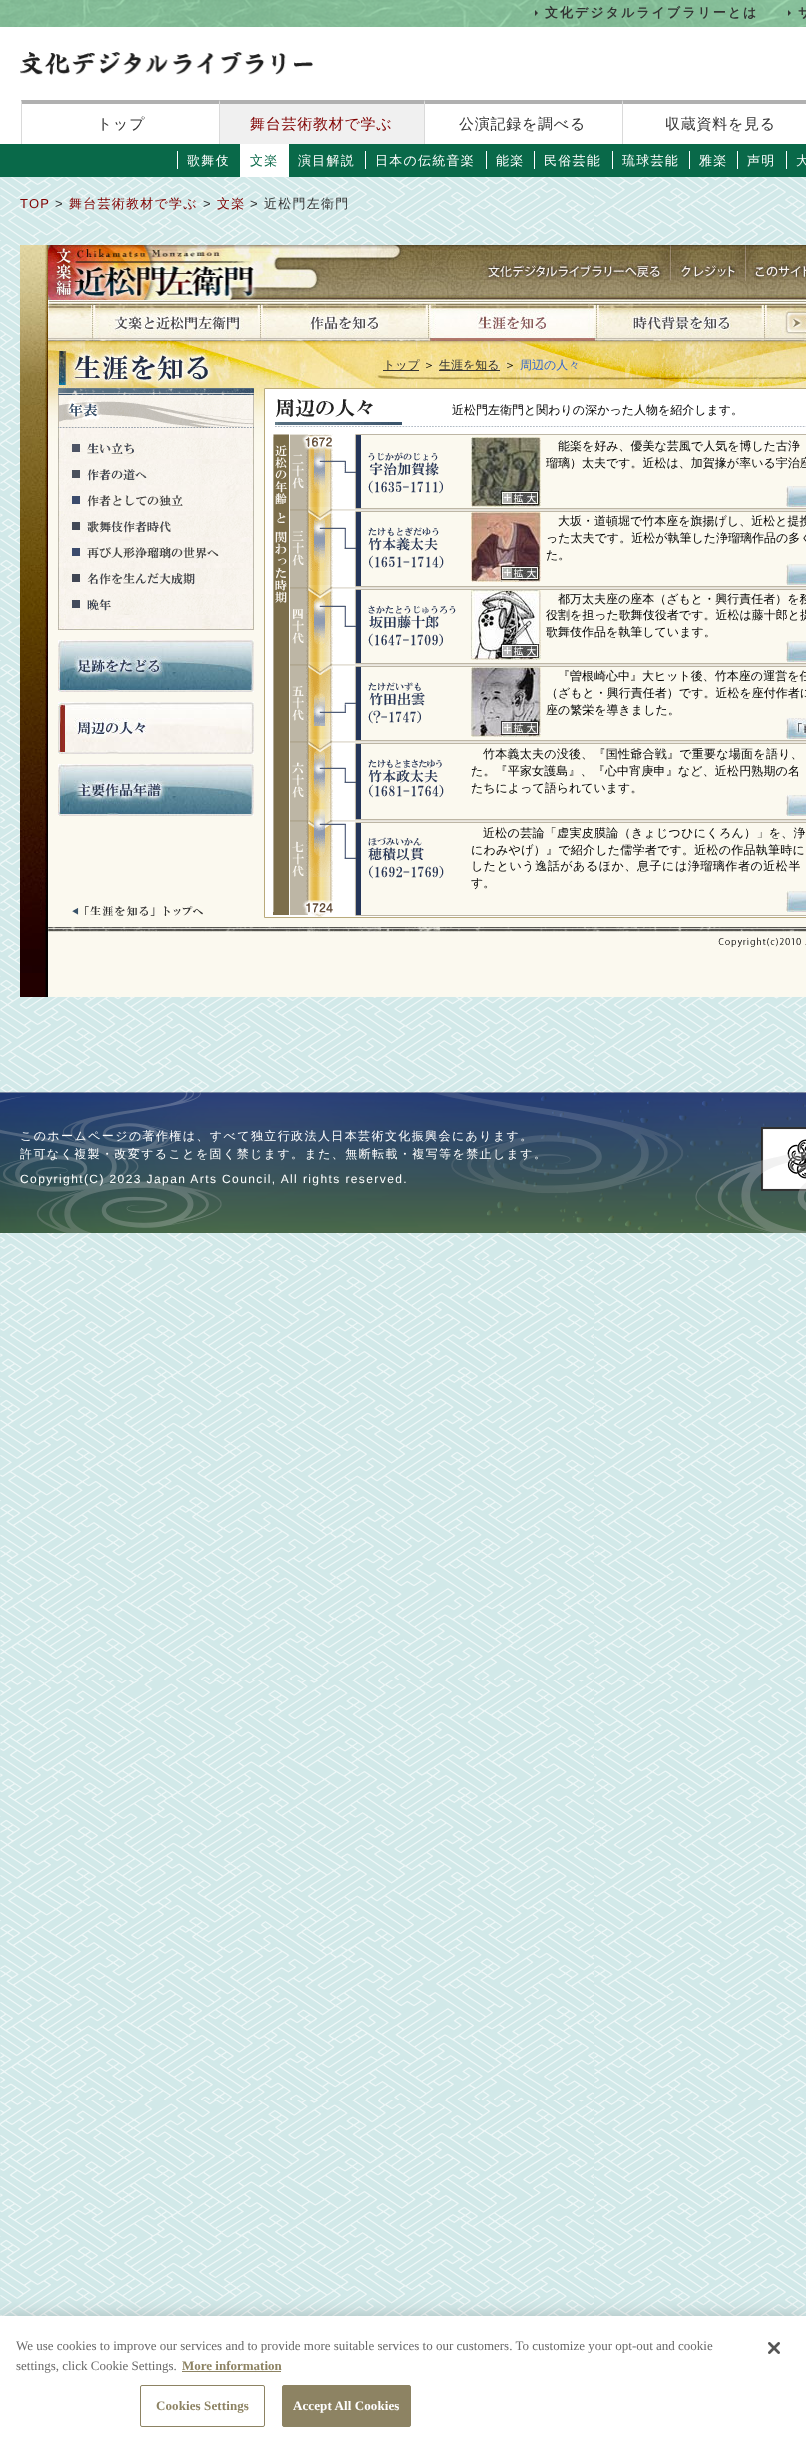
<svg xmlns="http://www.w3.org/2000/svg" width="806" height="2443">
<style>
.a{font:bold 13px WenQuanYi Zen Hei;letter-spacing:2px;fill:#333}
.b{font:500 15px WenQuanYi Zen Hei;letter-spacing:0.75px;fill:#333}
.c{font:500 15px WenQuanYi Zen Hei;letter-spacing:0.75px;fill:#800000}
.d{font:500 13px WenQuanYi Zen Hei;letter-spacing:1.25px;fill:#fff}
.e{font:500 13px WenQuanYi Zen Hei;letter-spacing:1.25px;fill:#096949}
.f{font:13px Liberation Sans;letter-spacing:1.25px;fill:#800000}
.g{font:13px Liberation Sans;letter-spacing:1.25px;fill:#333}
.h{font:500 13px WenQuanYi Zen Hei;letter-spacing:1.25px;fill:#800000}
.i{font:500 13px WenQuanYi Zen Hei;letter-spacing:1.25px;fill:#333}
.j{font:500 12px WenQuanYi Zen Hei;fill:#333}
.k{font:500 12px WenQuanYi Zen Hei;fill:#000}
.l{font:500 12px WenQuanYi Zen Hei;fill:#36c}
.m{font:500 12px WenQuanYi Zen Hei;letter-spacing:0.25px;fill:#000}
.n{font:500 12px WenQuanYi Zen Hei;letter-spacing:0.15px;fill:#000}
.o{font:500 12px WenQuanYi Zen Hei;letter-spacing:0.3px;fill:#000}
.p{font:500 12px WenQuanYi Zen Hei;letter-spacing:0.55px;fill:#000}
.q{font:500 12px WenQuanYi Zen Hei;letter-spacing:1.4px;fill:#fff}
.r{font:12px Liberation Sans;letter-spacing:1.4px;fill:#fff}
.s{font:13px Liberation Serif;fill:#696969}
.t{font:bold 13px Liberation Serif;fill:#8d8363}
.u{font:bold 13px Liberation Serif;letter-spacing:0.1px;fill:#8d8363}
.v{font:bold 13px Liberation Serif;letter-spacing:0.1px;fill:#fff}
</style>
<rect width="100%" height="100%" fill="#fff"/>
<image href="1.png" x="0" y="177" width="806" height="2139"/>
<image href="2.png" x="0" y="0" width="806" height="27"/>
<path fill="#333" d="M535 16v-6l3 3z"/>
<path fill="#333" d="M788 16v-6l3 3z"/>
<image href="3.png" x="20" y="52" width="293" height="23"/>
<path fill="#b0b0b0" d="M21 100h198v4h-197z"/>
<path fill="#dadada" d="M21 144v-44l1 4v40z"/>
<path fill="#b0b0b0" d="M219 100h205v4h-204z"/>
<path fill="#dadada" d="M219 144v-44l1 4v40z"/>
<path fill="#f0f0f0" d="M220 104h204v40H220z"/>
<path fill="#b0b0b0" d="M424 100h198v4h-197z"/>
<path fill="#dadada" d="M424 144v-44l1 4v40z"/>
<path fill="#b0b0b0" d="M622 100h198v4h-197z"/>
<path fill="#dadada" d="M622 144v-44l1 4v40z"/>
<path fill="#096949" d="M0 144h806v33H0z"/>
<path fill="#fff" d="M177 151h1v18H177z"/>
<path fill="#fff" d="M240 144h49v33H240z"/>
<path fill="#fff" d="M365 151h1v18H365z"/>
<path fill="#fff" d="M486 151h1v18H486z"/>
<path fill="#fff" d="M534 151h1v18H534z"/>
<path fill="#fff" d="M612 151h1v18H612z"/>
<path fill="#fff" d="M689 151h1v18H689z"/>
<path fill="#fff" d="M737 151h1v18H737z"/>
<path fill="#fff" d="M786 151h1v18H786z"/>
<path fill="#200" d="M20 973h25v24H20z"/>
<image href="4.png" x="20" y="245" width="25" height="728"/>
<image href="5.png" x="45" y="245" width="3" height="752"/>
<path fill="#fbf9ef" d="M48 474h758v523H48z"/>
<image href="6.png" x="403" y="245" width="403" height="58"/>
<image href="7.png" x="48" y="245" width="355" height="58"/>
<image href="8.png" x="483" y="245" width="188" height="56"/>
<image href="9.png" x="671" y="245" width="75" height="56"/>
<image href="10.png" x="746" y="245" width="60" height="56"/>
<image href="11.png" x="48" y="303" width="44" height="38"/>
<image href="12.png" x="92" y="303" width="168" height="38"/>
<image href="13.png" x="260" y="303" width="168" height="38"/>
<image href="14.png" x="428" y="303" width="168" height="38"/>
<image href="15.png" x="596" y="303" width="168" height="38"/>
<image href="16.png" x="764" y="303" width="42" height="38"/>
<image href="17.png" x="48" y="341" width="327" height="47"/>
<image href="18.png" x="375" y="341" width="431" height="47"/>
<path fill="#333" d="M383 370h36v1H383z"/>
<path fill="#333" d="M439 370h61v1H439z"/>
<image href="19.png" x="48" y="388" width="216" height="86"/>
<image href="20.png" x="58" y="388" width="196" height="40"/>
<image href="21.png" x="58" y="428" width="196" height="202"/>
<image href="22.png" x="58" y="438" width="196" height="21"/>
<image href="23.png" x="58" y="464" width="196" height="21"/>
<image href="24.png" x="58" y="490" width="196" height="21"/>
<image href="25.png" x="58" y="516" width="196" height="21"/>
<image href="26.png" x="58" y="542" width="196" height="21"/>
<image href="27.png" x="58" y="568" width="196" height="21"/>
<image href="28.png" x="58" y="594" width="196" height="21"/>
<image href="29.png" x="58" y="640" width="196" height="52"/>
<image href="30.png" x="58" y="702" width="196" height="52"/>
<image href="31.png" x="58" y="764" width="196" height="52"/>
<image href="32.png" x="72" y="906" width="131" height="11"/>
<path fill="#fff" stroke="#b9aa7b" d="M264.5 388.5h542v529H264.5z"/>
<image href="33.png" x="275" y="426" width="531" height="1"/>
<image href="34.png" x="275" y="399" width="127" height="26"/>
<image href="35.png" x="273" y="434" width="533" height="3"/>
<image href="36.png" x="273" y="437" width="533" height="475"/>
<image href="37.png" x="273" y="437" width="14" height="171"/>
<image href="38.png" x="292" y="437" width="64" height="56"/>
<image href="39.png" x="368" y="452" width="75" height="42"/>
<image href="40.png" x="471" y="437" width="70" height="70"/>
<image href="41.png" x="786" y="486" width="20" height="21"/>
<image href="42.png" x="290" y="507" width="516" height="5"/>
<image href="43.png" x="292" y="512" width="64" height="59"/>
<image href="44.png" x="368" y="527" width="76" height="42"/>
<image href="45.png" x="471" y="512" width="70" height="70"/>
<image href="46.png" x="786" y="564" width="20" height="21"/>
<image href="42.png" x="290" y="585" width="516" height="5"/>
<image href="47.png" x="292" y="590" width="64" height="59"/>
<image href="48.png" x="368" y="605" width="88" height="42"/>
<image href="49.png" x="471" y="590" width="70" height="70"/>
<image href="50.png" x="786" y="641" width="20" height="21"/>
<image href="42.png" x="290" y="662" width="516" height="5"/>
<image href="51.png" x="292" y="667" width="64" height="59"/>
<image href="52.png" x="368" y="682" width="57" height="42"/>
<image href="53.png" x="471" y="667" width="70" height="70"/>
<image href="54.png" x="786" y="718" width="20" height="21"/>
<image href="42.png" x="290" y="739" width="516" height="5"/>
<image href="55.png" x="292" y="744" width="64" height="59"/>
<image href="56.png" x="306" y="809" width="27" height="9"/>
<image href="57.png" x="368" y="759" width="76" height="39"/>
<image href="58.png" x="786" y="795" width="20" height="21"/>
<image href="59.png" x="290" y="818" width="516" height="5"/>
<image href="60.png" x="292" y="823" width="64" height="54"/>
<image href="61.png" x="302" y="900" width="31" height="12"/>
<image href="62.png" x="368" y="837" width="76" height="42"/>
<image href="63.png" x="786" y="891" width="20" height="21"/>
<image href="64.png" x="273" y="912" width="533" height="5"/>
<image href="65.png" x="48" y="927" width="758" height="5"/>
<image href="66.png" x="718" y="937" width="88" height="11"/>
<image href="67.png" x="0" y="1092" width="806" height="141"/>
<image href="68.png" x="0" y="1092" width="222" height="141"/>
<image href="70.png" x="761" y="1127" width="45" height="64"/>
<path fill="#00000033" filter="blur(9px)" d="M0 2316h806v127H0z"/>
<path fill="#fff" d="M0 2316h806v127H0z"/>
<path fill="#8d8363" d="M182 2371h99v1H182z"/>
<rect fill="none" stroke="#8d8363" x="140.5" y="2385.5" width="124" height="41" rx="1.5"/>
<rect fill="#8d8363" stroke="#8d8363" x="282.5" y="2385.5" width="128" height="41" rx="1.5"/>
<image href="71.png" x="768" y="2342" width="12" height="12"/>
<text class="a" x="545" y="17">文化デジタルライブラリーとは</text>
<text class="a" x="798" y="17">サ</text>
<text class="b" x="97" y="129">トップ</text>
<text class="c" x="250" y="129">舞台芸術教材で学ぶ</text>
<text class="b" x="459" y="129">公演記録を調べる</text>
<text class="b" x="665" y="129">収蔵資料を見る</text>
<text class="d" x="187" y="165">歌舞伎</text>
<text class="e" x="250" y="165">文楽</text>
<text class="d" x="298" y="165">演目解説</text>
<text class="d" x="375" y="165">日本の伝統音楽</text>
<text class="d" x="496" y="165">能楽</text>
<text class="d" x="544" y="165">民俗芸能</text>
<text class="d" x="622" y="165">琉球芸能</text>
<text class="d" x="699" y="165">雅楽</text>
<text class="d" x="747" y="165">声明</text>
<text class="d" x="796" y="165">大</text>
<text class="f" x="20" y="208">TOP</text>
<text class="g" x="55" y="208">&gt;</text>
<text class="h" x="69" y="208">舞台芸術教材で学ぶ</text>
<text class="g" x="203" y="208">&gt;</text>
<text class="h" x="217" y="208">文楽</text>
<text class="g" x="250" y="208">&gt;</text>
<text class="i" x="264" y="208">近松門左衛門</text>
<text class="j" x="383" y="369">トップ</text>
<text class="k" x="423" y="369">＞</text>
<text class="j" x="439" y="369">生涯を知る</text>
<text class="k" x="504" y="369">＞</text>
<text class="l" x="520" y="369">周辺の人々</text>
<text class="k" x="452" y="414">近松門左衛門と関わりの深かった人物を紹介します。</text>
<text class="k" x="558" y="450">能楽を好み、優美な芸風で人気を博した古浄</text>
<text class="k" x="546" y="467">瑠璃）太夫です。近松は、加賀掾が率いる宇治座</text>
<text class="k" x="558" y="525">大坂・道頓堀で竹本座を旗揚げし、近松と提携</text>
<text class="k" x="546" y="542">った太夫です。近松が執筆した浄瑠璃作品の多く</text>
<text class="k" x="546" y="559">た。</text>
<text class="k" x="558" y="603">都万太夫座の座本（ざもと・興行責任者）を務</text>
<text class="k" x="546" y="619">役割を担った歌舞伎役者です。近松は藤十郎と提</text>
<text class="k" x="546" y="636">歌舞伎作品を執筆しています。</text>
<text class="k" x="558" y="680">『曽根崎心中』大ヒット後、竹本座の運営を任</text>
<text class="k" x="546" y="697">（ざもと・興行責任者）です。近松を座付作者に</text>
<text class="k" x="546" y="714">座の繁栄を導きました。</text>
<text class="m" x="483" y="758">竹本義太夫の没後、『国性爺合戦』で重要な場面を語り、</text>
<text class="n" x="471" y="775">た。『平家女護島』、『心中宵庚申』など、近松円熟期の名</text>
<text class="k" x="471" y="792">たちによって語られています。</text>
<text class="o" x="483" y="837">近松の芸論「虚実皮膜論（きょじつひにくろん）」を、浄</text>
<text class="m" x="471" y="854">にわみやげ）』で紹介した儒学者です。近松の作品執筆時に</text>
<text class="p" x="471" y="870">したという逸話があるほか、息子には浄瑠璃作者の近松半</text>
<text class="k" x="471" y="887">す。</text>
<text class="q" x="20" y="1140">このホームページの著作権は、すべて独立行政法人日本芸術文化振興会にあります。</text>
<text class="q" x="20" y="1158">許可なく複製・改変することを固く禁じます。また、無断転載・複写等を禁止します。</text>
<image href="69.png" x="431" y="1092" width="375" height="141"/>
<text class="r" x="20" y="1183">Copyright(C) 2023 Japan Arts Council, All rights reserved.</text>
<text class="s" x="16" y="2350">We use cookies to improve our services and to provide more suitable services to our customers. To customize your opt-out and cookie</text>
<text class="s" x="16" y="2370">settings, click Cookie Settings.</text>
<text class="t" x="182" y="2370">More information</text>
<text class="u" x="156" y="2410">Cookies Settings</text>
<text class="v" x="293" y="2410">Accept All Cookies</text>
</svg>
